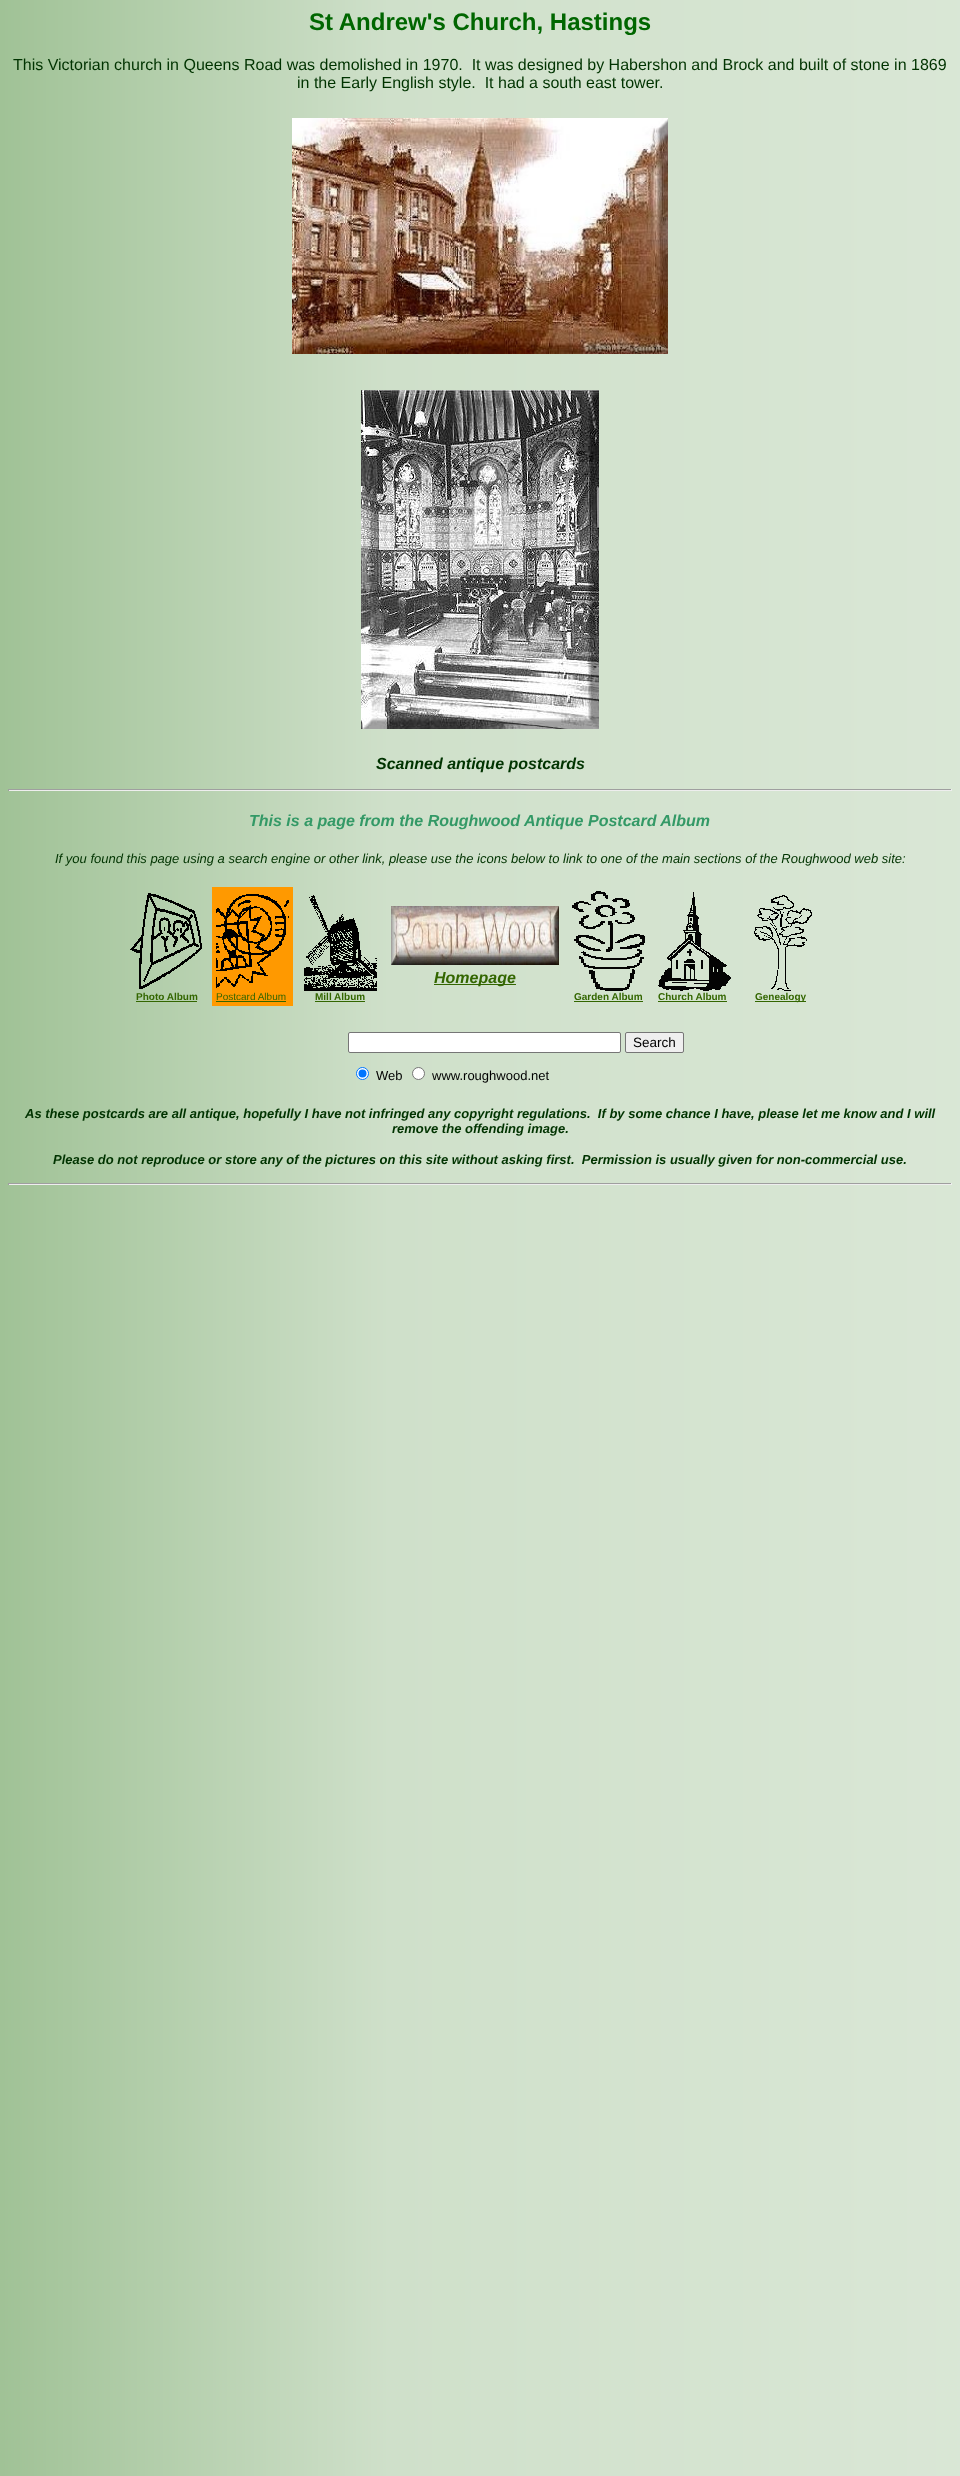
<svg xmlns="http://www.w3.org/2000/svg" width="960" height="2476">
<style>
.a{font:bold 24px Liberation Sans;fill:#060}
.b{font:16px Liberation Sans;fill:#030}
.c{font:italic bold 16px Liberation Sans;fill:#030}
.d{font:italic bold 16px Liberation Sans;fill:#396}
.e{font:italic 13px Liberation Sans;fill:#030}
.f{font:italic bold 16px Liberation Sans;fill:#360}
.g{font:bold 10px Liberation Sans;fill:#360}
.h{font:10px Liberation Sans;fill:#360}
.i{font:13.5px Liberation Sans;fill:#000}
.j{font:13px Liberation Sans;fill:#000}
.k{font:italic bold 13px Liberation Sans;fill:#030}
</style>
<rect width="100%" height="100%" fill="#fff"/>
<image href="1.png" x="0" y="0" width="960" height="2476"/>
<image href="2.png" x="292" y="118" width="376" height="236"/>
<image href="3.png" x="361" y="390" width="238" height="339"/>
<path fill="#9f9f9f" d="M8 789h944v1H8z"/>
<path fill="#eee" d="M951 789h1v2H951z"/>
<path fill="#eee" d="M8 790h944v1H8z"/>
<path fill="#9f9f9f" d="M8 789h1v2H8z"/>
<image href="4.png" x="391" y="906" width="168" height="59"/>
<path fill="#360" d="M434 984h82v1H434z"/>
<image href="5.png" x="130" y="893" width="72" height="96"/>
<path fill="#360" d="M136 1001h61v1H136z"/>
<path fill="#f90" d="M212 887h81v119H212z"/>
<image href="6.png" x="216" y="894" width="73" height="94"/>
<path fill="#360" d="M216 1001h70v1H216z"/>
<image href="7.png" x="304" y="895" width="73" height="96"/>
<path fill="#360" d="M315 1001h50v1H315z"/>
<image href="8.png" x="572" y="891" width="73" height="100"/>
<path fill="#360" d="M574 1001h69v1H574z"/>
<image href="9.png" x="658" y="892" width="73" height="99"/>
<path fill="#360" d="M658 1001h69v1H658z"/>
<image href="10.png" x="754" y="895" width="58" height="96"/>
<path fill="#360" d="M755 1001h51v1H755z"/>
<rect fill="#fff" stroke="#767676" x="348.5" y="1032.5" width="272" height="20" rx="1.5"/>
<rect fill="#efefef" stroke="#767676" x="625.5" y="1032.5" width="58" height="20" rx="1.5"/>
<circle fill="#fff" stroke="#0075ff" cx="362.5" cy="1073.5" r="6"/>
<circle fill="#0075ff" cx="362.5" cy="1073.5" r="4"/>
<circle fill="#fff" stroke="#767676" cx="418.5" cy="1073.5" r="6"/>
<path fill="#9f9f9f" d="M8 1183h944v1H8z"/>
<path fill="#eee" d="M951 1183h1v2H951z"/>
<path fill="#eee" d="M8 1184h944v1H8z"/>
<path fill="#9f9f9f" d="M8 1183h1v2H8z"/>
<text class="a" x="309" y="30">St Andrew's Church, Hastings</text>
<text class="b" xml:space="preserve" x="13" y="70">This Victorian church in Queens Road was demolished in 1970.  It was designed by Habershon and Brock and built of stone in 1869</text>
<text class="b" xml:space="preserve" x="297" y="88">in the Early English style.  It had a south east tower.</text>
<text class="c" x="376" y="769">Scanned antique postcards</text>
<text class="d" x="249" y="826">This is a page from the Roughwood Antique Postcard Album</text>
<text class="e" x="55" y="863">If you found this page using a search engine or other link, please use the icons below to link to one of the main sections of the Roughwood web site:</text>
<text class="f" x="434" y="983">Homepage</text>
<text class="g" x="136" y="1000">Photo Album</text>
<text class="h" x="216" y="1000">Postcard Album</text>
<text class="g" x="315" y="1000">Mill Album</text>
<text class="g" x="574" y="1000">Garden Album</text>
<text class="g" x="658" y="1000">Church Album</text>
<text class="g" x="755" y="1000">Genealogy</text>
<text class="i" x="633" y="1047">Search</text>
<text class="j" x="376" y="1080">Web</text>
<text class="j" x="432" y="1080">www.roughwood.net</text>
<text class="k" xml:space="preserve" x="25" y="1118">As these postcards are all antique, hopefully I have not infringed any copyright regulations.  If by some chance I have, please let me know and I will</text>
<text class="k" x="392" y="1133">remove the offending image.</text>
<text class="k" xml:space="preserve" x="53" y="1164">Please do not reproduce or store any of the pictures on this site without asking first.  Permission is usually given for non-commercial use.</text>
</svg>
